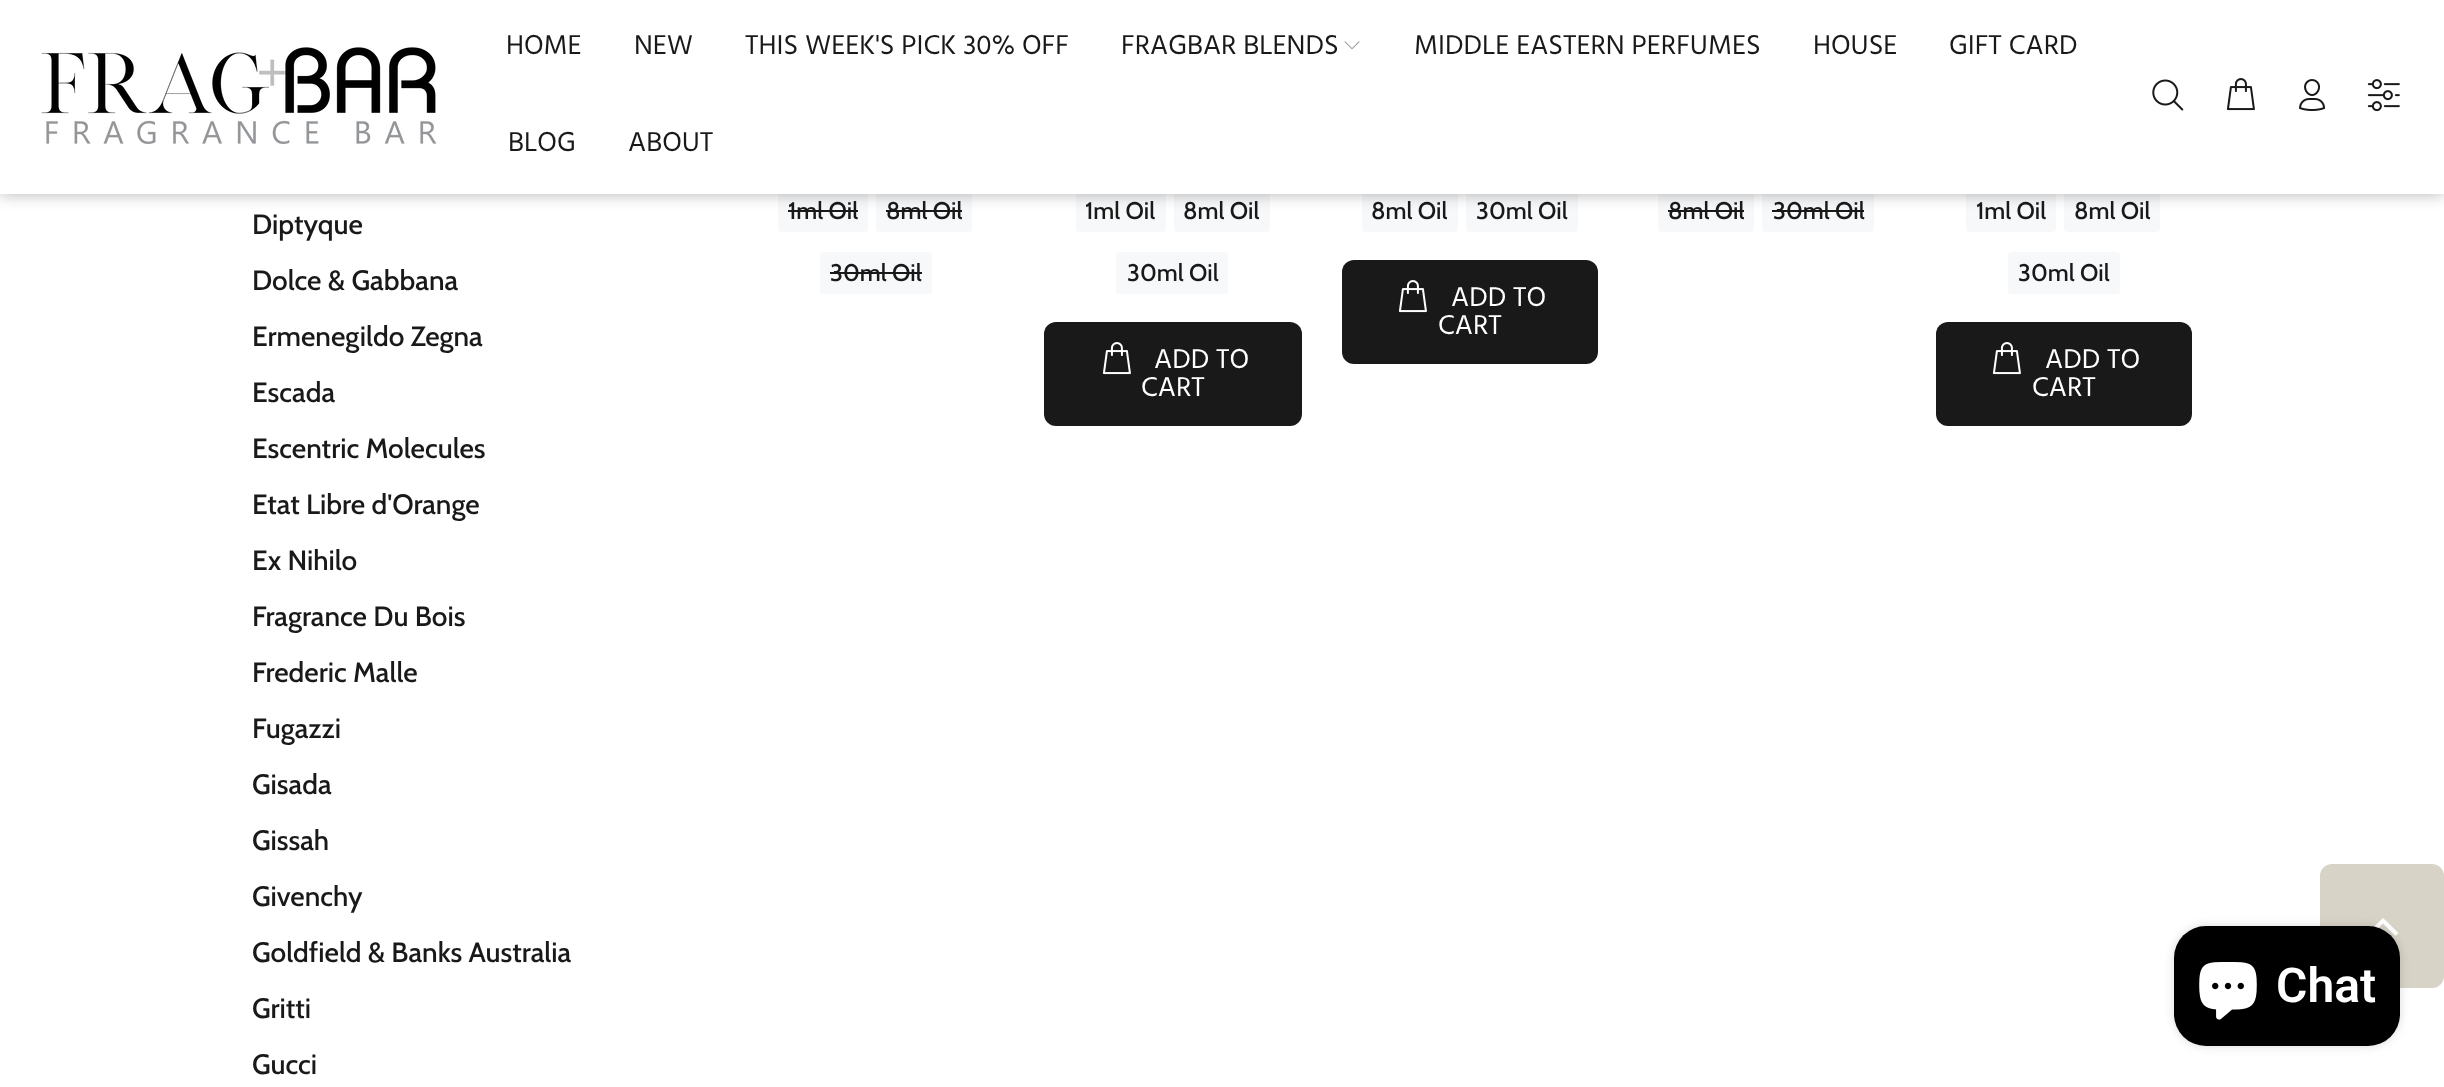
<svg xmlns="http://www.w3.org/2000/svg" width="2444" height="1087">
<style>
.a{font:28px Hind;fill:#191919}
.b{font:500 28px Cabin;fill:#191919}
.c{font:500 24px Cabin;fill:#191919}
.d{font:28px Hind;fill:#fff}
.e{font:600 48px Roboto;fill:#fff}
</style>
<rect width="100%" height="100%" fill="#fff"/>
<rect fill="#f7f8fa" x="778" y="190" width="90" height="42" rx="4"/>
<path fill="#191919" d="M788 210h70v2H788z"/>
<rect fill="#f7f8fa" x="876" y="190" width="96" height="42" rx="4"/>
<path fill="#191919" d="M886 210h76v2H886z"/>
<rect fill="#f7f8fa" x="1076" y="190" width="90" height="42" rx="4"/>
<rect fill="#f7f8fa" x="1174" y="190" width="96" height="42" rx="4"/>
<rect fill="#f7f8fa" x="1362" y="190" width="96" height="42" rx="4"/>
<rect fill="#f7f8fa" x="1466" y="190" width="112" height="42" rx="4"/>
<rect fill="#f7f8fa" x="1658" y="190" width="96" height="42" rx="4"/>
<path fill="#191919" d="M1668 210h76v2H1668z"/>
<rect fill="#f7f8fa" x="1762" y="190" width="112" height="42" rx="4"/>
<path fill="#191919" d="M1772 210h92v2H1772z"/>
<rect fill="#f7f8fa" x="1966" y="190" width="90" height="42" rx="4"/>
<rect fill="#f7f8fa" x="2064" y="190" width="96" height="42" rx="4"/>
<path fill="#0000004d" filter="blur(8px)" d="M0 0h2444v194H0z"/>
<path fill="#fff" d="M0 0h2444v194H0z"/>
<image href="1.png" x="41" y="47" width="396" height="97"/>
<image href="2.png" x="1344" y="41" width="16" height="9"/>
<image href="3.png" x="2152" y="79" width="32" height="32"/>
<image href="4.png" x="2226" y="78" width="29" height="33"/>
<image href="5.png" x="2299" y="79" width="27" height="32"/>
<image href="6.png" x="2367" y="79" width="33" height="33"/>
<rect fill="#f7f8fa" x="820" y="252" width="112" height="42" rx="4"/>
<path fill="#191919" d="M830 272h92v2H830z"/>
<rect fill="#f7f8fa" x="1116" y="252" width="112" height="42" rx="4"/>
<rect fill="#191919" x="1044" y="322" width="258" height="104" rx="12"/>
<image href="7.png" x="1102" y="342" width="29" height="33"/>
<rect fill="#191919" x="1342" y="260" width="256" height="104" rx="12"/>
<image href="7.png" x="1398" y="280" width="29" height="33"/>
<rect fill="#f7f8fa" x="2008" y="252" width="112" height="42" rx="4"/>
<rect fill="#191919" x="1936" y="322" width="256" height="104" rx="12"/>
<image href="7.png" x="1992" y="342" width="29" height="33"/>
<rect fill="#d7d3c7" x="2320" y="864" width="124" height="124" rx="12"/>
<path fill="#fff" d="M2395.5 936l-12.5-12.5l-12.5 12.5l-3-3l15.5-15l15.5 15z"/>
<rect fill="#00000026" filter="blur(5px)" x="2174" y="926" width="226" height="120" rx="32"/>
<rect fill="#000" x="2174" y="926" width="226" height="120" rx="32"/>
<image href="8.png" x="2199" y="962" width="58" height="58"/>
<text class="a" x="506" y="54">HOME</text>
<text class="a" x="634" y="54">NEW</text>
<text class="a" x="745" y="54">THIS WEEK'S PICK 30% OFF</text>
<text class="a" x="1121" y="54">FRAGBAR BLENDS</text>
<text class="a" x="1414" y="54">MIDDLE EASTERN PERFUMES</text>
<text class="a" x="1813" y="54">HOUSE</text>
<text class="a" x="1949" y="54">GIFT CARD</text>
<text class="a" x="508" y="151">BLOG</text>
<text class="a" x="628" y="151">ABOUT</text>
<text class="b" x="252" y="234">Diptyque</text>
<text class="b" x="252" y="290">Dolce &amp; Gabbana</text>
<text class="b" x="252" y="346">Ermenegildo Zegna</text>
<text class="b" x="252" y="402">Escada</text>
<text class="b" x="252" y="458">Escentric Molecules</text>
<text class="b" x="252" y="514">Etat Libre d'Orange</text>
<text class="b" x="252" y="570">Ex Nihilo</text>
<text class="b" x="252" y="626">Fragrance Du Bois</text>
<text class="b" x="252" y="682">Frederic Malle</text>
<text class="b" x="252" y="738">Fugazzi</text>
<text class="b" x="252" y="794">Gisada</text>
<text class="b" x="252" y="850">Gissah</text>
<text class="b" x="252" y="906">Givenchy</text>
<text class="b" x="252" y="962">Goldfield &amp; Banks Australia</text>
<text class="b" x="252" y="1018">Gritti</text>
<text class="b" x="252" y="1074">Gucci</text>
<text class="c" x="788" y="219">1ml Oil</text>
<text class="c" x="886" y="219">8ml Oil</text>
<text class="c" x="830" y="281">30ml Oil</text>
<text class="c" x="1085" y="219">1ml Oil</text>
<text class="c" x="1183" y="219">8ml Oil</text>
<text class="c" x="1127" y="281">30ml Oil</text>
<text class="d" x="1154" y="368">ADD TO</text>
<text class="d" x="1141" y="396">CART</text>
<text class="c" x="1371" y="219">8ml Oil</text>
<text class="c" x="1476" y="219">30ml Oil</text>
<text class="d" x="1451" y="306">ADD TO</text>
<text class="d" x="1438" y="334">CART</text>
<text class="c" x="1668" y="219">8ml Oil</text>
<text class="c" x="1773" y="219">30ml Oil</text>
<text class="c" x="1976" y="219">1ml Oil</text>
<text class="c" x="2074" y="219">8ml Oil</text>
<text class="c" x="2018" y="281">30ml Oil</text>
<text class="d" x="2045" y="368">ADD TO</text>
<text class="d" x="2032" y="396">CART</text>
<text class="e" x="2276" y="1002">Chat</text>
</svg>
